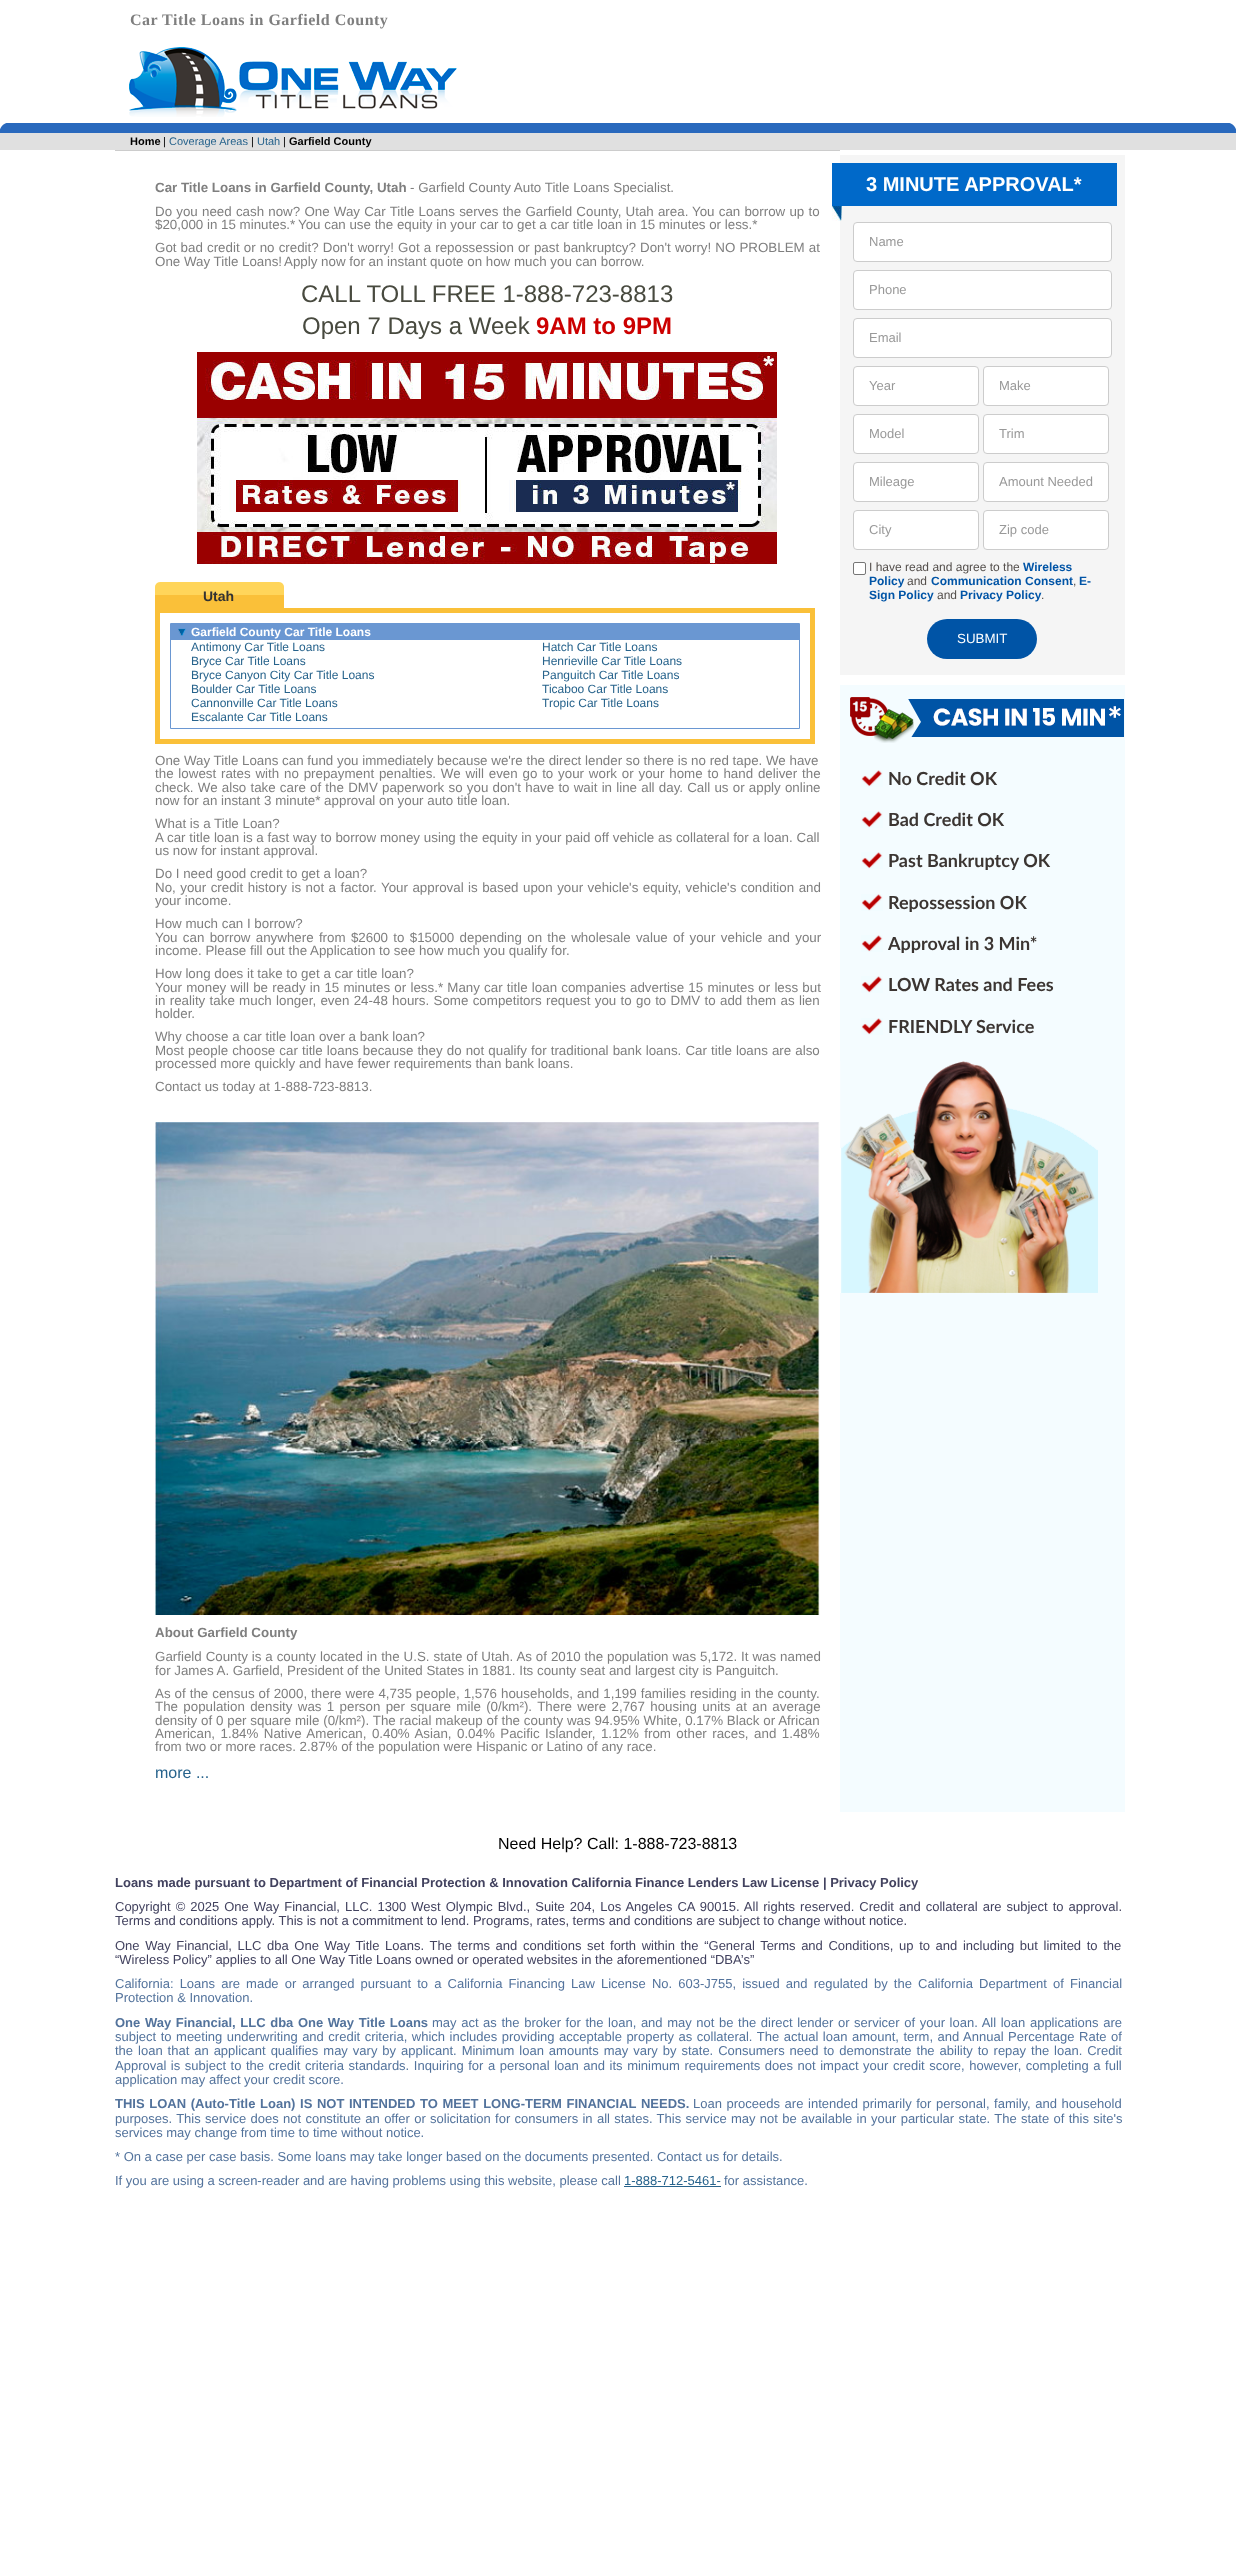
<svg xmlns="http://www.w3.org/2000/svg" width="1236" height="2549">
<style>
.a{font:bold 16px Liberation Serif;letter-spacing:0.5px;fill:#7f7f7f}
.b{font:bold 11px Liberation Sans;fill:#000}
.c{font:11px Liberation Sans;fill:#000}
.d{font:11px Liberation Sans;fill:#27638c}
.e{font:bold 13.35px Liberation Sans;fill:#7f7f7f}
.f{font:13.35px Liberation Sans;fill:#7f7f7f}
.g{font:24px Liberation Sans;fill:#484a3f}
.h{font:bold 24px Liberation Sans;fill:#c00}
.i{font:bold 14px Liberation Sans;fill:#333}
.j{font:bold 12px Liberation Sans;fill:#fff}
.k{font:12px Liberation Sans;fill:#27638c}
.l{font:16px Liberation Sans;fill:#27638c}
.m{font:bold 20px Liberation Sans;fill:#fff}
.n{font:13px Liberation Sans;fill:#999}
.o{font:12px Liberation Sans;fill:#534e4b}
.p{font:bold 12px Liberation Sans;fill:#0054a6}
.q{font:13.35px Liberation Sans;fill:#fff}
.r{font:bold 18px Lato;fill:#3b3532}
.s{font:16px Liberation Sans;fill:#000}
.t{font:bold 13px Liberation Sans;fill:#42425f}
.u{font:13px Liberation Sans;fill:#42425f}
.v{font:13px Liberation Sans;fill:#53739c}
.w{font:bold 13px Liberation Sans;fill:#53739c}
.x{font:13px Liberation Sans;fill:#27638c}
</style>
<rect width="100%" height="100%" fill="#fff"/>
<image href="1.png" x="129" y="47" width="328" height="70"/>
<path fill="#e0e0e0" d="M0 133h1236v17H0z"/>
<path fill="#2969bd" d="M0 123h1236v10H0z"/>
<image href="2.png" x="1229" y="123" width="7" height="7"/>
<image href="3.png" x="0" y="123" width="7" height="7"/>
<path fill="#ccc" d="M115 150h725v1H115z"/>
<image href="4.png" x="197" y="352" width="580" height="212"/>
<path fill="#fac039" d="M155 595h129v13H155z"/>
<image href="5.png" x="155" y="582" width="129" height="13"/>
<path fill="#fac039" d="M155 608h660v136H155z"/>
<path fill="#fff" d="M160 613h650v126H160z"/>
<path fill="none" stroke="#6a97d2" d="M170.5 623.5h629v105H170.5z"/>
<path fill="#6a97d2" d="M171 624h628v16H171z"/>
<image href="6.png" x="178" y="628" width="8" height="8"/>
<image href="7.png" x="155" y="1122" width="665" height="493"/>
<path fill="#f4fcff" d="M840 685h285v1127H840z"/>
<path fill="#f5f5f5" d="M840 155h285v520H840z"/>
<path fill="#0069c9" d="M832 163h285v43H832z"/>
<image href="8.png" x="832" y="206" width="10" height="15"/>
<rect fill="#fff" stroke="#ccc" x="853.5" y="222.5" width="258" height="39" rx="3.5"/>
<rect fill="#fff" stroke="#ccc" x="853.5" y="270.5" width="258" height="39" rx="3.5"/>
<rect fill="#fff" stroke="#ccc" x="853.5" y="318.5" width="258" height="39" rx="3.5"/>
<rect fill="#fff" stroke="#ccc" x="853.5" y="366.5" width="125" height="39" rx="3.5"/>
<rect fill="#fff" stroke="#ccc" x="983.5" y="366.5" width="125" height="39" rx="3.5"/>
<rect fill="#fff" stroke="#ccc" x="853.5" y="414.5" width="125" height="39" rx="3.5"/>
<rect fill="#fff" stroke="#ccc" x="983.5" y="414.5" width="125" height="39" rx="3.5"/>
<rect fill="#fff" stroke="#ccc" x="853.5" y="462.5" width="125" height="39" rx="3.5"/>
<rect fill="#fff" stroke="#ccc" x="983.5" y="462.5" width="125" height="39" rx="3.5"/>
<rect fill="#fff" stroke="#ccc" x="853.5" y="510.5" width="125" height="39" rx="3.5"/>
<rect fill="#fff" stroke="#ccc" x="983.5" y="510.5" width="125" height="39" rx="3.5"/>
<rect fill="#fff" stroke="#767676" x="853.5" y="562.5" width="12" height="12" rx="1.5"/>
<rect fill="#0054a6" x="927" y="619" width="110" height="40" rx="20"/>
<image href="9.png" x="850" y="697" width="274" height="46"/>
<image href="10.png" x="861" y="770" width="22" height="17"/>
<image href="10.png" x="861" y="811" width="22" height="17"/>
<image href="10.png" x="861" y="852" width="22" height="17"/>
<image href="10.png" x="861" y="894" width="22" height="17"/>
<image href="10.png" x="861" y="935" width="22" height="17"/>
<image href="10.png" x="861" y="976" width="22" height="17"/>
<image href="10.png" x="861" y="1018" width="22" height="17"/>
<image href="11.png" x="840" y="1061" width="258" height="232"/>
<path fill="#27638c" d="M624 2186h97v1H624z"/>
<text class="a" x="130" y="25">Car Title Loans in Garfield County</text>
<text class="b" x="130" y="145">Home</text>
<text class="c" x="163" y="145">|</text>
<text class="d" x="169" y="145">Coverage Areas</text>
<text class="c" x="251" y="145">|</text>
<text class="d" x="257" y="145">Utah</text>
<text class="c" x="283" y="145">|</text>
<text class="b" x="289" y="145">Garfield County</text>
<text class="e" x="155" y="192">Car Title Loans in Garfield County, Utah</text>
<text class="f" x="410" y="192">- Garfield County Auto Title Loans Specialist.</text>
<text class="f" x="155" y="216" word-spacing="0.5">Do you need cash now? One Way Car Title Loans serves the Garfield County, Utah area.</text>
<text class="f" x="692" y="216" word-spacing="0.5">You can borrow up to</text>
<text class="f" x="155" y="229">$20,000 in 15 minutes.*</text>
<text class="f" x="298" y="229">You can use the equity in your car to get a car title loan in 15 minutes or less.*</text>
<text class="f" x="155" y="252" word-spacing="0.4">Got bad credit or no credit? Don't worry! Got a repossession or past bankruptcy? Don't worry! NO PROBLEM at</text>
<text class="f" x="155" y="266">One Way Title Loans!</text>
<text class="f" x="284" y="266">Apply now for an instant quote on how much you can borrow.</text>
<text class="g" x="301" y="302">CALL TOLL FREE 1-888-723-8813</text>
<text class="g" x="302" y="334">Open 7 Days a Week</text>
<text class="h" x="536" y="334">9AM to 9PM</text>
<text class="i" x="203" y="601">Utah</text>
<text class="j" x="191" y="636">Garfield County Car Title Loans</text>
<text class="k" x="191" y="651">Antimony Car Title Loans</text>
<text class="k" x="542" y="651">Hatch Car Title Loans</text>
<text class="k" x="191" y="665">Bryce Car Title Loans</text>
<text class="k" x="542" y="665">Henrieville Car Title Loans</text>
<text class="k" x="191" y="679">Bryce Canyon City Car Title Loans</text>
<text class="k" x="542" y="679">Panguitch Car Title Loans</text>
<text class="k" x="191" y="693">Boulder Car Title Loans</text>
<text class="k" x="542" y="693">Ticaboo Car Title Loans</text>
<text class="k" x="191" y="707">Cannonville Car Title Loans</text>
<text class="k" x="542" y="707">Tropic Car Title Loans</text>
<text class="k" x="191" y="721">Escalante Car Title Loans</text>
<text class="f" x="155" y="765">One Way Title Loans can fund you immediately because we're the direct lender so there is no red tape. We have</text>
<text class="f" x="155" y="778" word-spacing="1.1">the lowest rates with no prepayment penalties. We will even go to your work or your home to hand deliver the</text>
<text class="f" x="155" y="792" word-spacing="0.5">check. We also take care of the DMV paperwork so you don't have to wait in line all day. Call us or apply online</text>
<text class="f" x="155" y="805">now for an instant 3 minute* approval on your auto title loan.</text>
<text class="f" x="155" y="828">What is a Title Loan?</text>
<text class="f" x="155" y="842" word-spacing="0.1">A car title loan is a fast way to borrow money using the equity in your paid off vehicle as collateral for a loan. Call</text>
<text class="f" x="155" y="855">us now for instant approval.</text>
<text class="f" x="155" y="878">Do I need good credit to get a loan?</text>
<text class="f" x="155" y="892" word-spacing="0.75">No, your credit history is not a factor. Your approval is based upon your vehicle's equity, vehicle's condition and</text>
<text class="f" x="155" y="905">your income.</text>
<text class="f" x="155" y="928">How much can I borrow?</text>
<text class="f" x="155" y="942" word-spacing="1.6">You can borrow anywhere from $2600 to $15000 depending on the wholesale value of your vehicle and your</text>
<text class="f" x="155" y="955">income. Please fill out the Application to see how much you qualify for.</text>
<text class="f" x="155" y="978">How long does it take to get a car title loan?</text>
<text class="f" x="155" y="992" word-spacing="0.5">Your money will be ready in 15 minutes or less.* Many car title loan companies advertise 15 minutes or less but</text>
<text class="f" x="155" y="1005" word-spacing="0.6">in reality take much longer, even 24-48 hours. Some competitors request you to go to DMV to add them as lien</text>
<text class="f" x="155" y="1018">holder.</text>
<text class="f" x="155" y="1041">Why choose a car title loan over a bank loan?</text>
<text class="f" x="155" y="1055" word-spacing="0.4">Most people choose car title loans because they do not qualify for traditional bank loans. Car title loans are also</text>
<text class="f" x="155" y="1068">processed more quickly and have fewer requirements than bank loans.</text>
<text class="f" x="155" y="1091">Contact us today at 1-888-723-8813.</text>
<text class="e" x="155" y="1637">About Garfield County</text>
<text class="f" x="155" y="1661" word-spacing="0.2">Garfield County is a county located in the U.S. state of Utah. As of 2010 the population was 5,172. It was named</text>
<text class="f" x="155" y="1675">for James A. Garfield, President of the United States in 1881. Its county seat and largest city is Panguitch.</text>
<text class="f" x="155" y="1698" word-spacing="0.3">As of the census of 2000, there were 4,735 people, 1,576 households, and 1,199 families residing in the county.</text>
<text class="f" x="155" y="1711" word-spacing="1.6">The population density was 1 person per square mile (0/km²). There were 2,767 housing units at an average</text>
<text class="f" x="155" y="1725" word-spacing="0.1">density of 0 per square mile (0/km²). The racial makeup of the county was 94.95% White, 0.17% Black or African</text>
<text class="f" x="155" y="1738" word-spacing="1.75">American, 1.84% Native American, 0.40% Asian, 0.04% Pacific Islander, 1.12% from other races, and 1.48%</text>
<text class="f" x="155" y="1751">from two or more races. 2.87% of the population were Hispanic or Latino of any race.</text>
<text class="l" x="155" y="1778">more ...</text>
<text class="m" x="866" y="191">3 MINUTE APPROVAL*</text>
<text class="n" x="869" y="246">Name</text>
<text class="n" x="869" y="294">Phone</text>
<text class="n" x="869" y="342">Email</text>
<text class="n" x="869" y="390">Year</text>
<text class="n" x="999" y="390">Make</text>
<text class="n" x="869" y="438">Model</text>
<text class="n" x="999" y="438">Trim</text>
<text class="n" x="869" y="486">Mileage</text>
<text class="n" x="999" y="486">Amount Needed</text>
<text class="n" x="869" y="534">City</text>
<text class="n" x="999" y="534">Zip code</text>
<text class="o" x="869" y="571">I have read and agree to the</text>
<text class="p" x="1023" y="571">Wireless</text>
<text class="p" x="869" y="585">Policy</text>
<text class="o" x="907" y="585">and</text>
<text class="p" x="931" y="585">Communication Consent</text>
<text class="o" x="1073" y="585">,</text>
<text class="p" x="1079" y="585">E-</text>
<text class="p" x="869" y="599">Sign Policy</text>
<text class="o" x="937" y="599">and</text>
<text class="p" x="960" y="599">Privacy Policy</text>
<text class="o" x="1041" y="599">.</text>
<text class="q" x="957" y="643">SUBMIT</text>
<text class="r" x="888" y="785">No Credit OK</text>
<text class="r" x="888" y="826">Bad Credit OK</text>
<text class="r" x="888" y="867">Past Bankruptcy OK</text>
<text class="r" x="888" y="909">Repossession OK</text>
<text class="r" x="888" y="950">Approval in 3 Min*</text>
<text class="r" x="888" y="991">LOW Rates and Fees</text>
<text class="r" x="888" y="1033">FRIENDLY Service</text>
<text class="s" x="498" y="1849">Need Help? Call: 1-888-723-8813</text>
<text class="t" x="115" y="1887">Loans made pursuant to Department of Financial Protection &amp; Innovation California Finance Lenders Law License | Privacy Policy</text>
<text class="u" x="115" y="1911" word-spacing="1.4">Copyright © 2025 One Way Financial, LLC. 1300 West Olympic Blvd., Suite 204, Los Angeles CA 90015. All rights reserved. Credit and collateral are subject to approval.</text>
<text class="u" x="115" y="1925">Terms and conditions apply. This is not a commitment to lend. Programs, rates, terms and conditions are subject to change without notice.</text>
<text class="u" x="115" y="1950" word-spacing="2">One Way Financial, LLC dba One Way Title Loans. The terms and conditions set forth within the “General Terms and Conditions, up to and including but limited to the</text>
<text class="u" x="115" y="1964">“Wireless Policy” applies to all One Way Title Loans owned or operated websites in the aforementioned “DBA’s”</text>
<text class="v" x="115" y="1988" word-spacing="2.5">California: Loans are made or arranged pursuant to a California Financing Law License No. 603-J755, issued and regulated by the California Department of Financial</text>
<text class="v" x="115" y="2002">Protection &amp; Innovation.</text>
<text class="w" x="115" y="2027" word-spacing="1">One Way Financial, LLC dba One Way Title Loans</text>
<text class="v" x="432" y="2027" word-spacing="1">may act as the broker for the loan, and may not be the direct lender or servicer of your loan. All loan applications are</text>
<text class="v" x="115" y="2041" word-spacing="0.9">subject to meeting underwriting and credit criteria, which includes providing acceptable property as collateral. The actual loan amount, term, and Annual Percentage Rate of</text>
<text class="v" x="115" y="2055" word-spacing="1.35">the loan that an applicant qualifies may vary by applicant. Minimum loan amounts may vary by state. Consumers need to demonstrate the ability to repay the loan. Credit</text>
<text class="v" x="115" y="2070" word-spacing="0.95">Approval is subject to the credit criteria standards. Inquiring for a personal loan and its minimum requirements does not impact your credit score, however, completing a full</text>
<text class="v" x="115" y="2084">application may affect your credit score.</text>
<text class="w" x="115" y="2108" word-spacing="1">THIS LOAN (Auto-Title Loan) IS NOT INTENDED TO MEET LONG-TERM FINANCIAL NEEDS.</text>
<text class="v" x="693" y="2108" word-spacing="1">Loan proceeds are intended primarily for personal, family, and household</text>
<text class="v" x="115" y="2123" word-spacing="0.7">purposes. This service does not constitute an offer or solicitation for consumers in all states. This service may not be available in your particular state. The state of this site's</text>
<text class="v" x="115" y="2137">services may change from time to time without notice.</text>
<text class="v" x="115" y="2161">* On a case per case basis. Some loans may take longer based on the documents presented. Contact us for details.</text>
<text class="v" x="115" y="2185">If you are using a screen-reader and are having problems using this website, please call</text>
<text class="x" x="624" y="2185">1-888-712-5461-</text>
<text class="v" x="724" y="2185">for assistance.</text>
</svg>
